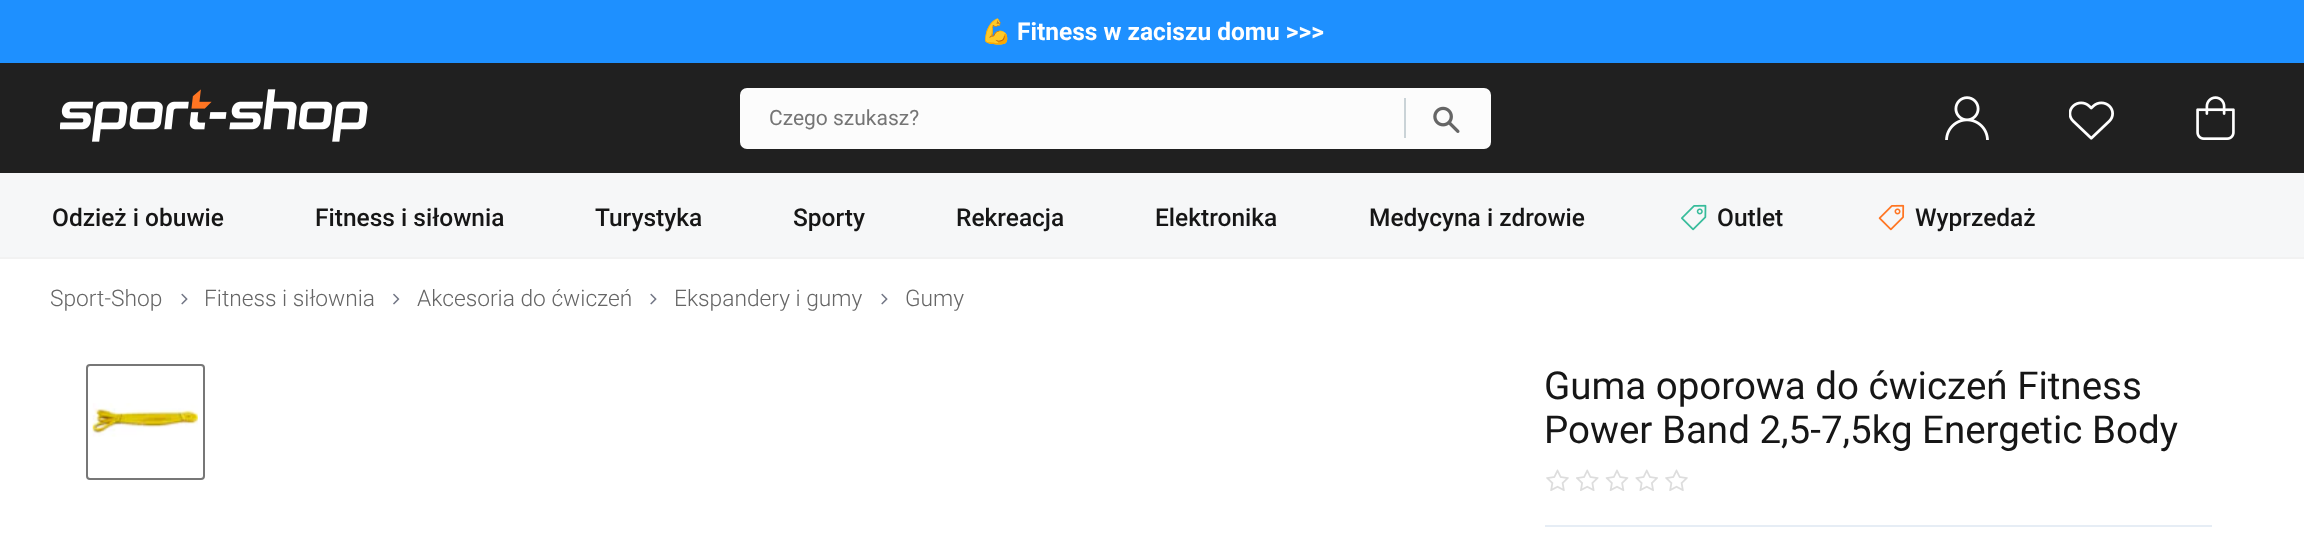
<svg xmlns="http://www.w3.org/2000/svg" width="2304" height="548">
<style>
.a{font:bold 24.5px Noto Color Emoji;fill:#fff}
.b{font:bold 24.5px Roboto;fill:#fff}
.c{font:21px Roboto;fill:#757575}
.d{font:500 24.5px Roboto;fill:#161616}
.e{font:300 22.75px Roboto;fill:#666}
.f{font:38.5px Roboto;fill:#161616}
</style>
<rect width="100%" height="100%" fill="#fff"/>
<path fill="#1e90ff" d="M0 0h2304v63H0z"/>
<path fill="#202020" d="M0 63h2304v110H0z"/>
<image href="1.png" x="60" y="89" width="308" height="53"/>
<rect fill="#fcfcfc" x="740" y="88" width="751" height="61" rx="7"/>
<path fill="#cad3d7" d="M1404 98h2v40H1404z"/>
<image href="2.png" x="1433" y="106" width="27" height="27"/>
<image href="3.png" x="1945" y="96" width="44" height="44"/>
<image href="4.png" x="2069" y="101" width="45" height="39"/>
<image href="5.png" x="2196" y="96" width="39" height="44"/>
<path fill="#f6f7f8" d="M0 173h2304v84H0z"/>
<path fill="#f2f2f2" d="M0 257h2304v2H0z"/>
<image href="6.png" x="1681" y="204" width="26" height="27"/>
<image href="7.png" x="1878" y="204" width="27" height="27"/>
<image href="8.png" x="181" y="293" width="7" height="12"/>
<image href="9.png" x="393" y="293" width="7" height="12"/>
<image href="8.png" x="650" y="293" width="7" height="12"/>
<image href="8.png" x="881" y="293" width="7" height="12"/>
<rect fill="none" stroke="#777" stroke-width="2" x="87" y="365" width="117" height="114" rx="3"/>
<image href="10.png" x="92" y="403" width="106" height="34"/>
<path fill="#e6edf5" d="M1545 525h667v2H1545z"/>
<image href="11.png" x="1546" y="469" width="23" height="22"/>
<image href="12.png" x="1576" y="469" width="23" height="22"/>
<image href="13.png" x="1605" y="469" width="24" height="22"/>
<image href="14.png" x="1635" y="469" width="23" height="22"/>
<image href="11.png" x="1665" y="469" width="23" height="22"/>
<text class="a" x="981" y="40">💪</text>
<text class="b" x="1017" y="40">Fitness w zaciszu domu &gt;&gt;&gt;</text>
<text class="c" x="769" y="125">Czego szukasz?</text>
<text class="d" x="52" y="226">Odzież i obuwie</text>
<text class="d" x="315" y="226">Fitness i siłownia</text>
<text class="d" x="595" y="226">Turystyka</text>
<text class="d" x="793" y="226">Sporty</text>
<text class="d" x="956" y="226">Rekreacja</text>
<text class="d" x="1155" y="226">Elektronika</text>
<text class="d" x="1369" y="226">Medycyna i zdrowie</text>
<text class="d" x="1717" y="226">Outlet</text>
<text class="d" x="1915" y="226">Wyprzedaż</text>
<text class="e" x="50" y="306">Sport-Shop</text>
<text class="e" x="204" y="306">Fitness i siłownia</text>
<text class="e" x="417" y="306">Akcesoria do ćwiczeń</text>
<text class="e" x="674" y="306">Ekspandery i gumy</text>
<text class="e" x="905" y="306">Gumy</text>
<text class="f" x="1544" y="399">Guma oporowa do ćwiczeń Fitness</text>
<text class="f" x="1544" y="443">Power Band 2,5-7,5kg Energetic Body</text>
</svg>
